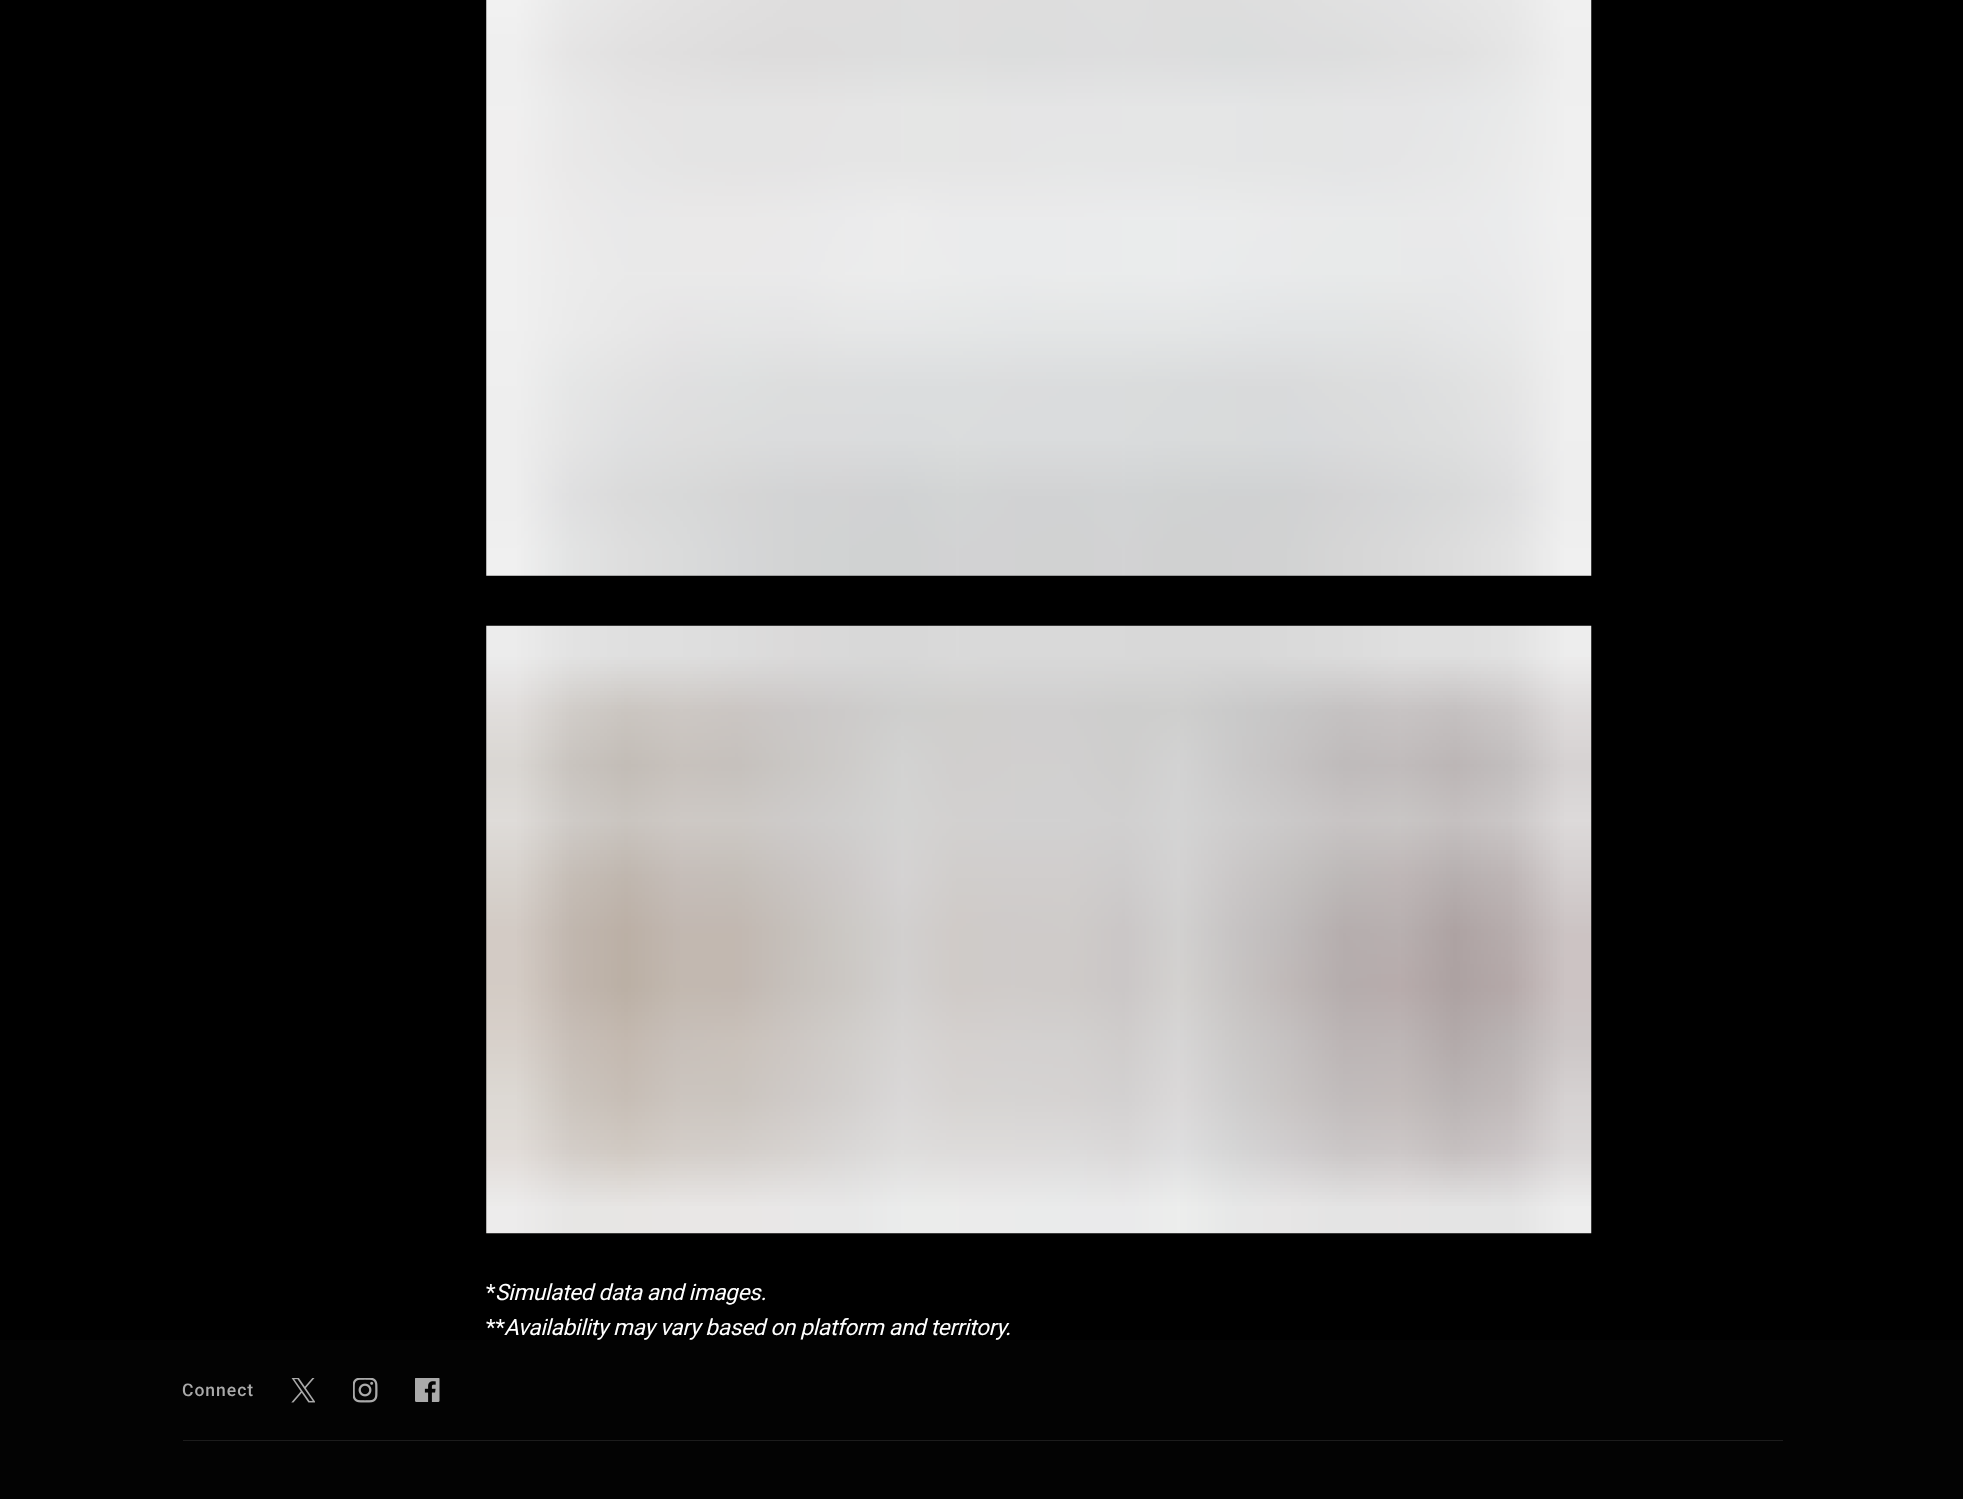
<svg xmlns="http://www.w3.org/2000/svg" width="1963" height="1499">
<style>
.a{font:22.5px Roboto;letter-spacing:-0.3px;fill:#fff}
.b{font:italic 22.5px Roboto;letter-spacing:-0.3px;fill:#fff}
.c{font:500 17.5px Roboto;letter-spacing:1px;fill:#aaa}
</style>
<rect width="100%" height="100%" fill="#000"/>
<image href="1.png" x="486" y="0" width="1106" height="576"/>
<image href="2.png" x="486" y="625" width="1106" height="609"/>
<path fill="#030303" d="M0 1340h1963v159H0z"/>
<image href="3.png" x="291" y="1378" width="24" height="25"/>
<image href="4.png" x="353" y="1378" width="25" height="25"/>
<image href="5.png" x="415" y="1378" width="25" height="24"/>
<path fill="#1c1c1c" d="M183 1440h1600v1H183z"/>
<text class="a" x="486" y="1300">*</text>
<text class="b" x="495" y="1300">Simulated data and images.</text>
<text class="a" x="486" y="1335">**</text>
<text class="b" x="504" y="1335">Availability may vary based on platform and territory.</text>
<text class="c" x="182" y="1396">Connect</text>
</svg>
